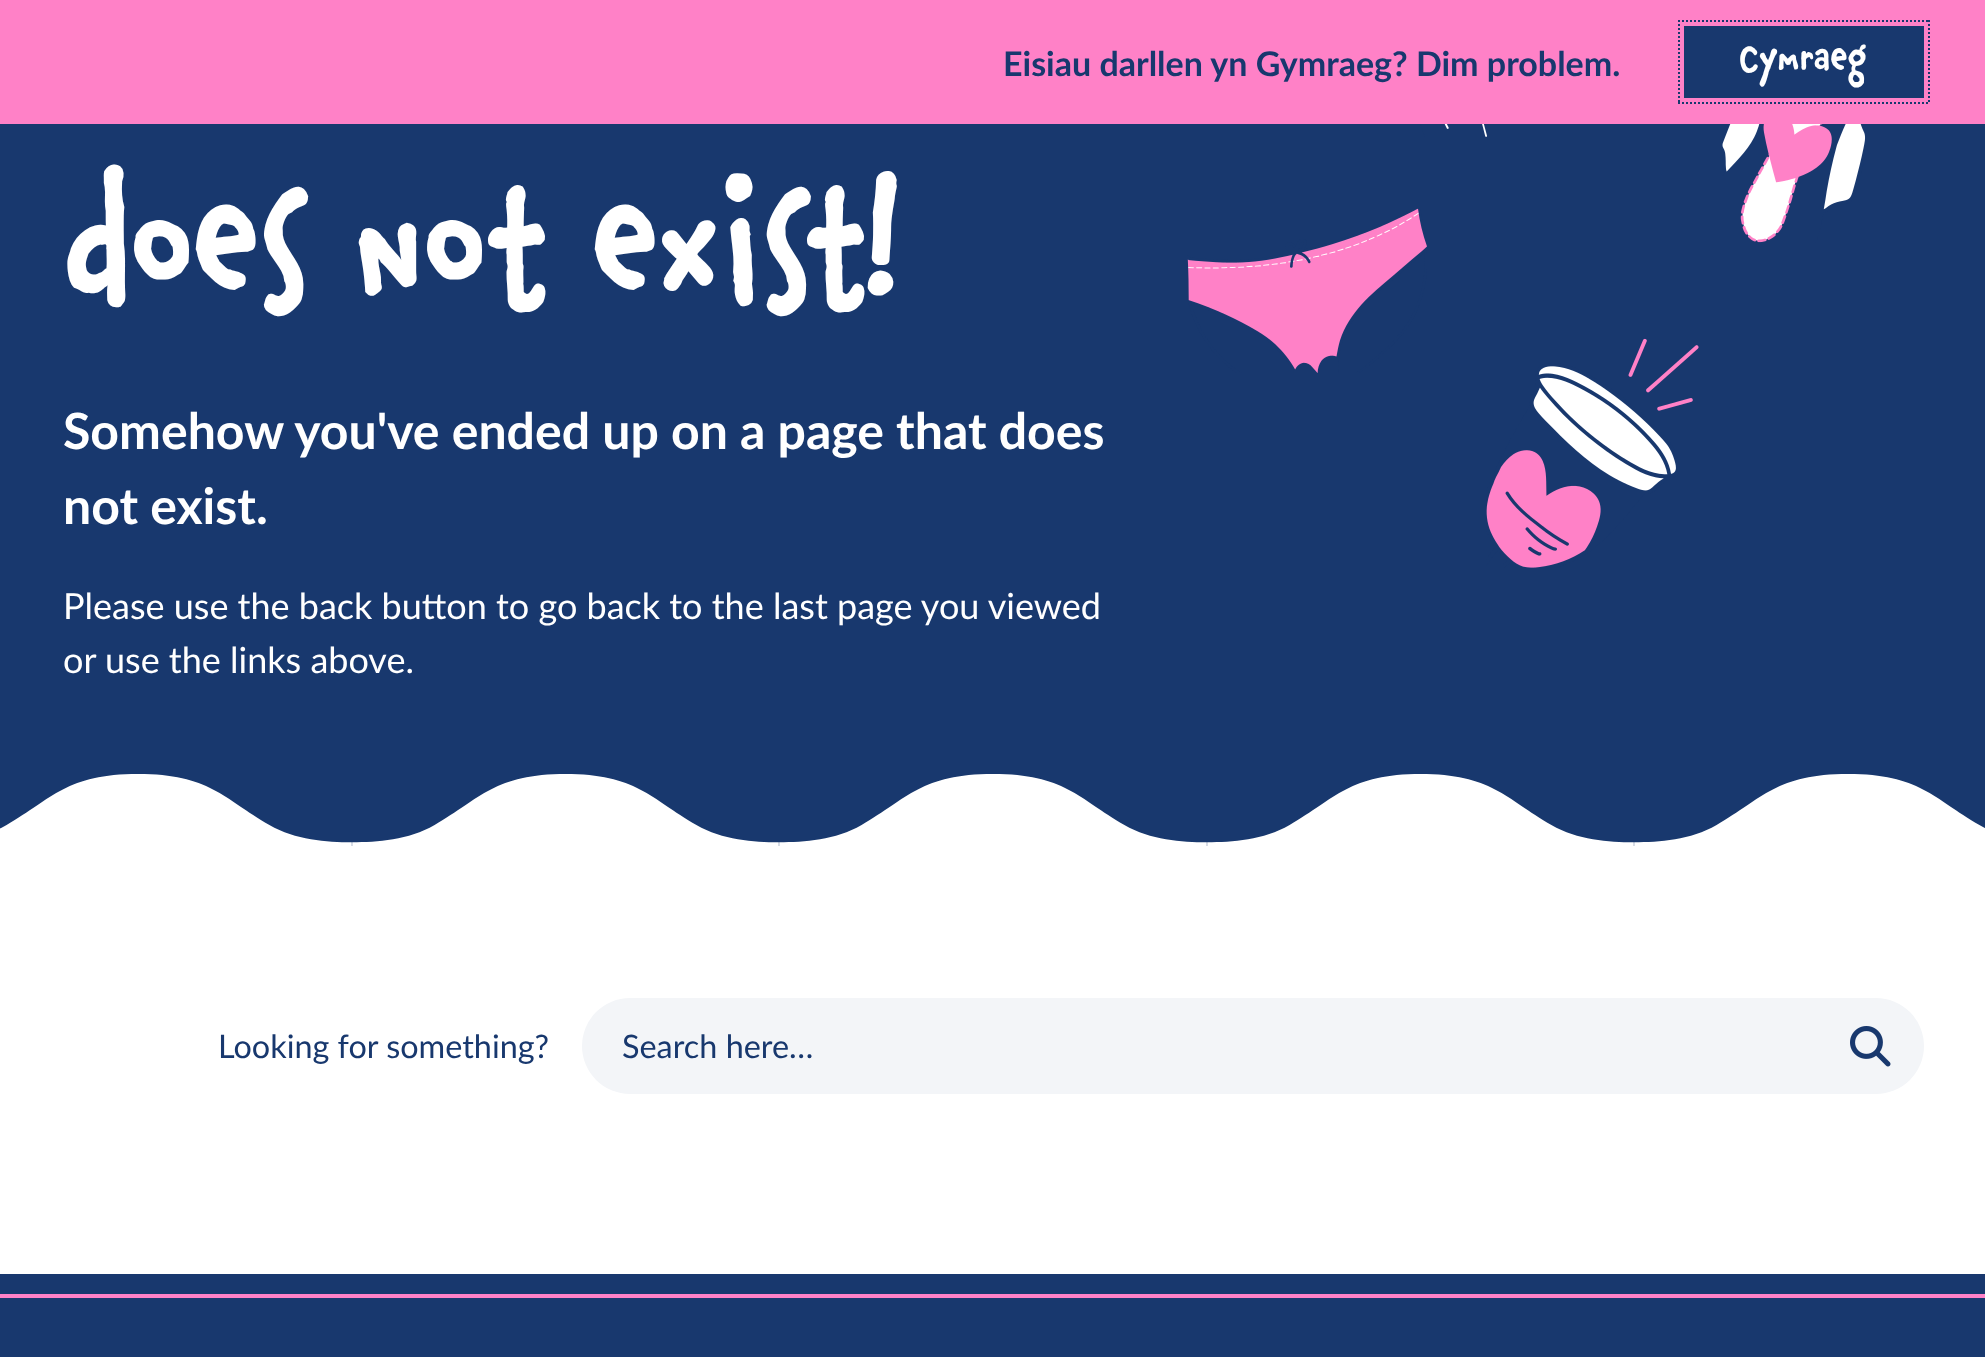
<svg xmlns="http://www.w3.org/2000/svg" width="1985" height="1357">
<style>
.a{font:bold 34px Lato;fill:#18386e}
.b{font:bold 40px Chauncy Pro;fill:#fff}
.c{font:bold 156px Chauncy Pro;fill:#fff}
.d{font:bold 50px Lato;fill:#fff}
.e{font:36px Lato;fill:#fff}
.f{font:32.4px Lato;fill:#18386e}
</style>
<rect width="100%" height="100%" fill="#fff"/>
<path fill="#ff81c7" d="M0 0h1985v124H0z"/>
<path fill="#18386e" d="M1684 26h240v72H1684z"/>
<path fill="none" stroke="#18386e" stroke-width="2" stroke-dasharray="2 2" d="M1678 21h252"/>
<path fill="none" stroke="#18386e" stroke-width="2" stroke-dasharray="2 2" d="M1929 20v84"/>
<path fill="none" stroke="#18386e" stroke-width="2" stroke-dasharray="2 2" d="M1678 103h252"/>
<path fill="none" stroke="#18386e" stroke-width="2" stroke-dasharray="2 2" d="M1679 20v84"/>
<path fill="#18386e" d="M0 124h1985v722H0z"/>
<image href="1.png" x="1420" y="124" width="67" height="13"/>
<image href="2.png" x="1722" y="124" width="144" height="119"/>
<image href="3.png" x="1187" y="208" width="240" height="165"/>
<image href="4.png" x="1486" y="338" width="213" height="230"/>
<image href="5.png" x="0" y="774" width="1985" height="72"/>
<rect fill="#f3f5f8" x="582" y="998" width="1342" height="96" rx="48"/>
<image href="6.png" x="1850" y="1026" width="41" height="41"/>
<path fill="#18386e" d="M0 1274h1985v83H0z"/>
<path fill="#ff81c7" d="M0 1294h1985v4H0z"/>
<text class="a" x="1003" y="76">Eisiau darllen yn Gymraeg? Dim problem.</text>
<text class="b" x="1739" y="72">Cymraeg</text>
<text class="c" x="63" y="298">does not exist!</text>
<text class="d" x="63" y="449">Somehow you've ended up on a page that does</text>
<text class="d" x="63" y="524">not exist.</text>
<text class="e" x="63" y="619">Please use the back button to go back to the last page you viewed</text>
<text class="e" x="63" y="673">or use the links above.</text>
<text class="f" x="218" y="1058">Looking for something?</text>
<text class="f" x="622" y="1058">Search here…</text>
</svg>
